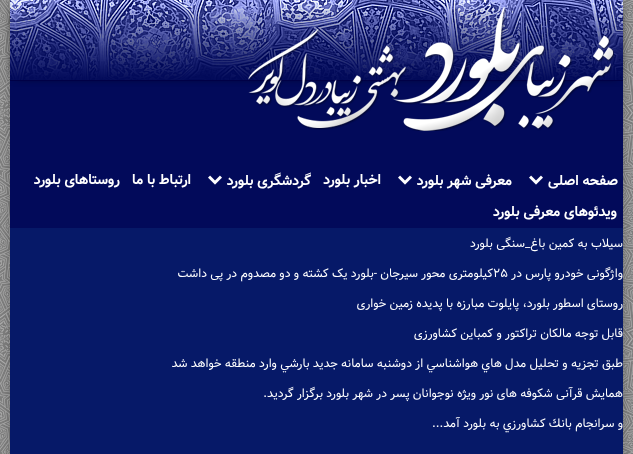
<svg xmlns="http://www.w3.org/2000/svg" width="633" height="454">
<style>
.a{font:bold 14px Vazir;direction:rtl;fill:#fff}
.b{font:12px Vazir;direction:rtl;fill:#fff}
.c{font:12px Vazir;fill:#fff}
</style>
<rect width="100%" height="100%" fill="#fff"/>
<image href="1.png" x="0" y="0" width="633" height="454"/>
<path fill="#000" filter="blur(7.5px)" d="M18 8h597v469H18z"/>
<path fill="#020a5a" d="M10 81h613v147H10z"/>
<path fill="#000" filter="blur(5px)" d="M15 5h603v71H15z"/>
<image href="2.png" x="10" y="0" width="613" height="80"/>
<path fill="#000046" d="M10 80h613v1H10z"/>
<image href="3.png" x="248" y="7" width="366" height="124"/>
<image href="4.png" x="529" y="175" width="14" height="10"/>
<image href="4.png" x="398" y="175" width="14" height="10"/>
<image href="4.png" x="208" y="175" width="14" height="10"/>
<path fill="#061968" d="M10 228h613v226H10z"/>
<text class="a" x="618" y="185">صفحه اصلی</text>
<text class="a" x="512" y="185">معرفی شهر بلورد</text>
<text class="a" x="381" y="184">اخبار بلورد</text>
<text class="a" x="311" y="185">گردشگری بلورد</text>
<text class="a" x="191" y="184">ارتباط با ما</text>
<text class="a" x="120" y="184">روستاهای بلورد</text>
<text class="a" x="617" y="216">ویدئوهای معرفی بلورد</text>
<text class="b" x="623" y="247">سیلاب به کمین باغ_سنگی بلورد</text>
<text class="b" x="623" y="277">واژگونی خودرو پارس در</text>
<text class="c" x="493" y="277">۲۵</text>
<text class="b" x="493" y="277">کیلومتری محور سیرجان -بلورد یک کشته و دو مصدوم در پی داشت</text>
<text class="b" x="623" y="307">روستای اسطور بلورد، پایلوت مبارزه با پدیده زمین خواری</text>
<text class="b" x="623" y="337">قابل توجه مالکان تراکتور و کمباین‌ کشاورزی</text>
<text class="b" x="623" y="367">طبق تجزيه و تحليل مدل هاي هواشناسي از دوشنبه سامانه جديد بارشي وارد منطقه خواهد شد</text>
<text class="b" x="623" y="397">همایش قرآنی شکوفه های نور ویژه نوجوانان پسر در شهر بلورد برگزار گردید.</text>
<text class="b" x="623" y="427">و سرانجام بانك كشاورزي به بلورد آمد...</text>
</svg>
